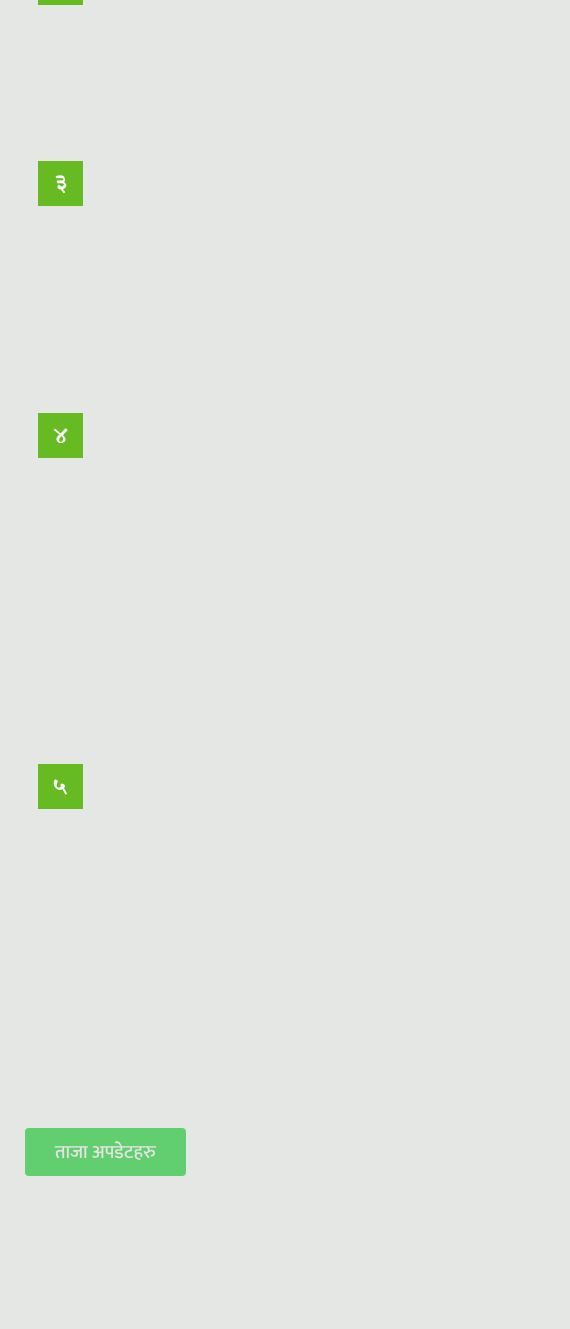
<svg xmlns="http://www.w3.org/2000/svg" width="570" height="1329">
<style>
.a{font:500 18.75px Mukta;fill:#e8e4e4}
</style>
<rect width="100%" height="100%" fill="#e5e7e4"/>
<path fill="#67bb22" d="M38 0h45v5H38z"/>
<path fill="#67bb22" d="M38 161h45v45H38z"/>
<image href="1.png" x="55" y="175" width="12" height="19"/>
<path fill="#67bb22" d="M38 413h45v45H38z"/>
<image href="2.png" x="53" y="428" width="15" height="16"/>
<path fill="#67bb22" d="M38 764h45v45H38z"/>
<image href="3.png" x="53" y="779" width="15" height="16"/>
<rect fill="#61ce70" x="25" y="1128" width="161" height="48" rx="4"/>
<text class="a" x="55" y="1158">ताजा अपडेटहरु</text>
</svg>
